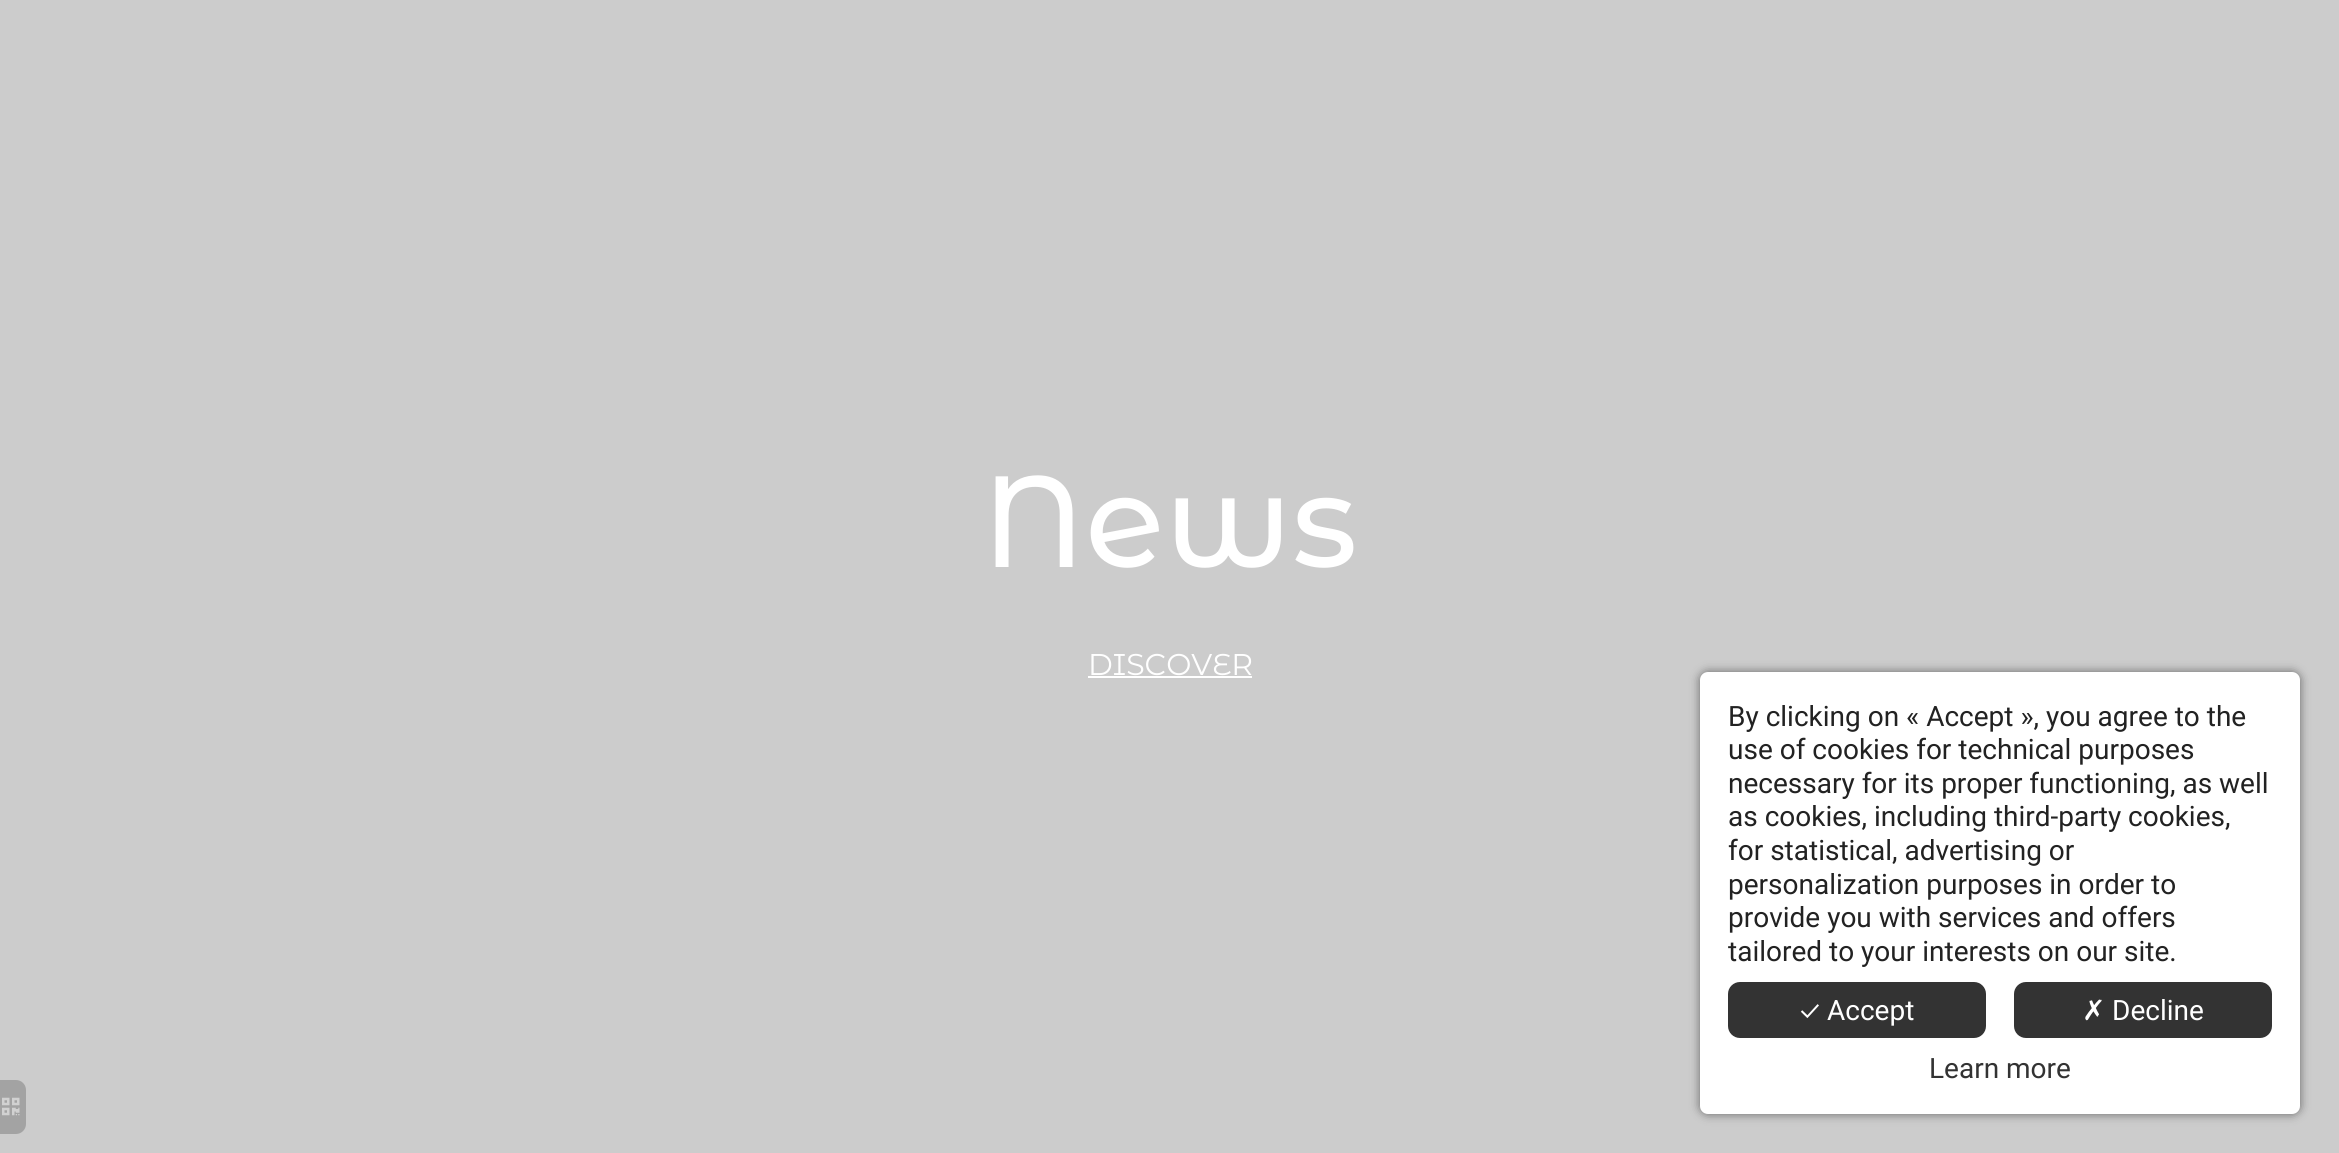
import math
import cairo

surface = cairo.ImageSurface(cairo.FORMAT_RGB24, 2339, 1153)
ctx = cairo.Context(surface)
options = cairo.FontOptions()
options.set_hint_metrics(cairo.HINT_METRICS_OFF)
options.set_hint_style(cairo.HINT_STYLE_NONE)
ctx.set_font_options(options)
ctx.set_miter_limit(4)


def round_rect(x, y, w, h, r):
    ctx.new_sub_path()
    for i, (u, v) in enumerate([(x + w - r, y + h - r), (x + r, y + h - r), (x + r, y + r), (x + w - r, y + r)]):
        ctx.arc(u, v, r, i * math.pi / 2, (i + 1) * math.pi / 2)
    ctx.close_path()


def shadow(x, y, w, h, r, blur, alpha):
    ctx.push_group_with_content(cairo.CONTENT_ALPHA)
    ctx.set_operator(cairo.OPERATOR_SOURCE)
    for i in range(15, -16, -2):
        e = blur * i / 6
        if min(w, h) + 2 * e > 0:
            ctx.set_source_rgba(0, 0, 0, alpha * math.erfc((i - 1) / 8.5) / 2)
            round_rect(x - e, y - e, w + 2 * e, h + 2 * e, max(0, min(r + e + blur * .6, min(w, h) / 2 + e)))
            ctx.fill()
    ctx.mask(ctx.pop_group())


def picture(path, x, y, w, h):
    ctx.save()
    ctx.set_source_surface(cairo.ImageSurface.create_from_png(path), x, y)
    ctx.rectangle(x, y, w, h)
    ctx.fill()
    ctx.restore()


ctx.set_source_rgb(0.8, 0.8, 0.8)
ctx.paint()
ctx.select_font_face("Montserrat Alternates Medium")
ctx.set_font_size(129.5)
ctx.set_source_rgb(1, 1, 1)
ctx.move_to(982, 567)
ctx.show_text("News")
ctx.select_font_face("Montserrat Alternates")
ctx.set_font_size(30)
ctx.move_to(1088, 675)
ctx.show_text("DISCOVER")
ctx.rectangle(1088, 676, 164, 2)
ctx.fill()
ctx.set_source_rgb(0, 0, 0)
shadow(1700, 672, 600, 442, 8, 5, 0.5)
ctx.set_source_rgb(1, 1, 1)
round_rect(1700, 672, 600, 442, 8)
ctx.fill()
ctx.select_font_face("Roboto")
ctx.set_font_size(28)
ctx.set_source_rgb(0.133, 0.133, 0.133)
ctx.move_to(1728, 726)
ctx.show_text("By clicking on « Accept », you agree to the")
ctx.move_to(1728, 759)
ctx.show_text("use of cookies for technical purposes")
ctx.move_to(1728, 793)
ctx.show_text("necessary for its proper functioning, as well")
ctx.move_to(1728, 826)
ctx.show_text("as cookies, including third-party cookies,")
ctx.move_to(1728, 860)
ctx.show_text("for statistical, advertising or")
ctx.move_to(1728, 894)
ctx.show_text("personalization purposes in order to")
ctx.move_to(1728, 927)
ctx.show_text("provide you with services and offers")
ctx.move_to(1728, 961)
ctx.show_text("tailored to your interests on our site.")
ctx.set_source_rgb(0.2, 0.2, 0.2)
round_rect(1728, 982, 258, 56, 12)
ctx.fill()
ctx.select_font_face("Ubuntu")
ctx.set_source_rgb(1, 1, 1)
ctx.move_to(1800, 1020)
ctx.show_text("✓")
ctx.select_font_face("Roboto")
ctx.move_to(1827, 1020)
ctx.show_text("Accept")
ctx.set_source_rgb(0.2, 0.2, 0.2)
round_rect(2014, 982, 258, 56, 12)
ctx.fill()
ctx.select_font_face("DejaVu Sans")
ctx.set_source_rgb(1, 1, 1)
ctx.move_to(2082, 1020)
ctx.show_text("✗")
ctx.select_font_face("Roboto")
ctx.move_to(2112, 1020)
ctx.show_text("Decline")
ctx.set_source_rgb(0.2, 0.2, 0.2)
ctx.move_to(1929, 1078)
ctx.show_text("Learn more")
ctx.set_source_rgb(0.639, 0.639, 0.639)
ctx.new_path()
ctx.move_to(0, 1080)
ctx.line_to(16, 1080)
ctx.curve_to(21.5, 1080, 26, 1084.5, 26, 1090)
ctx.line_to(26, 1124)
ctx.curve_to(26, 1129.5, 21.5, 1134, 16, 1134)
ctx.line_to(0, 1134)
ctx.close_path()
ctx.fill()
picture("img1.png", 2, 1097, 18, 19)
surface.write_to_png("page.png")
